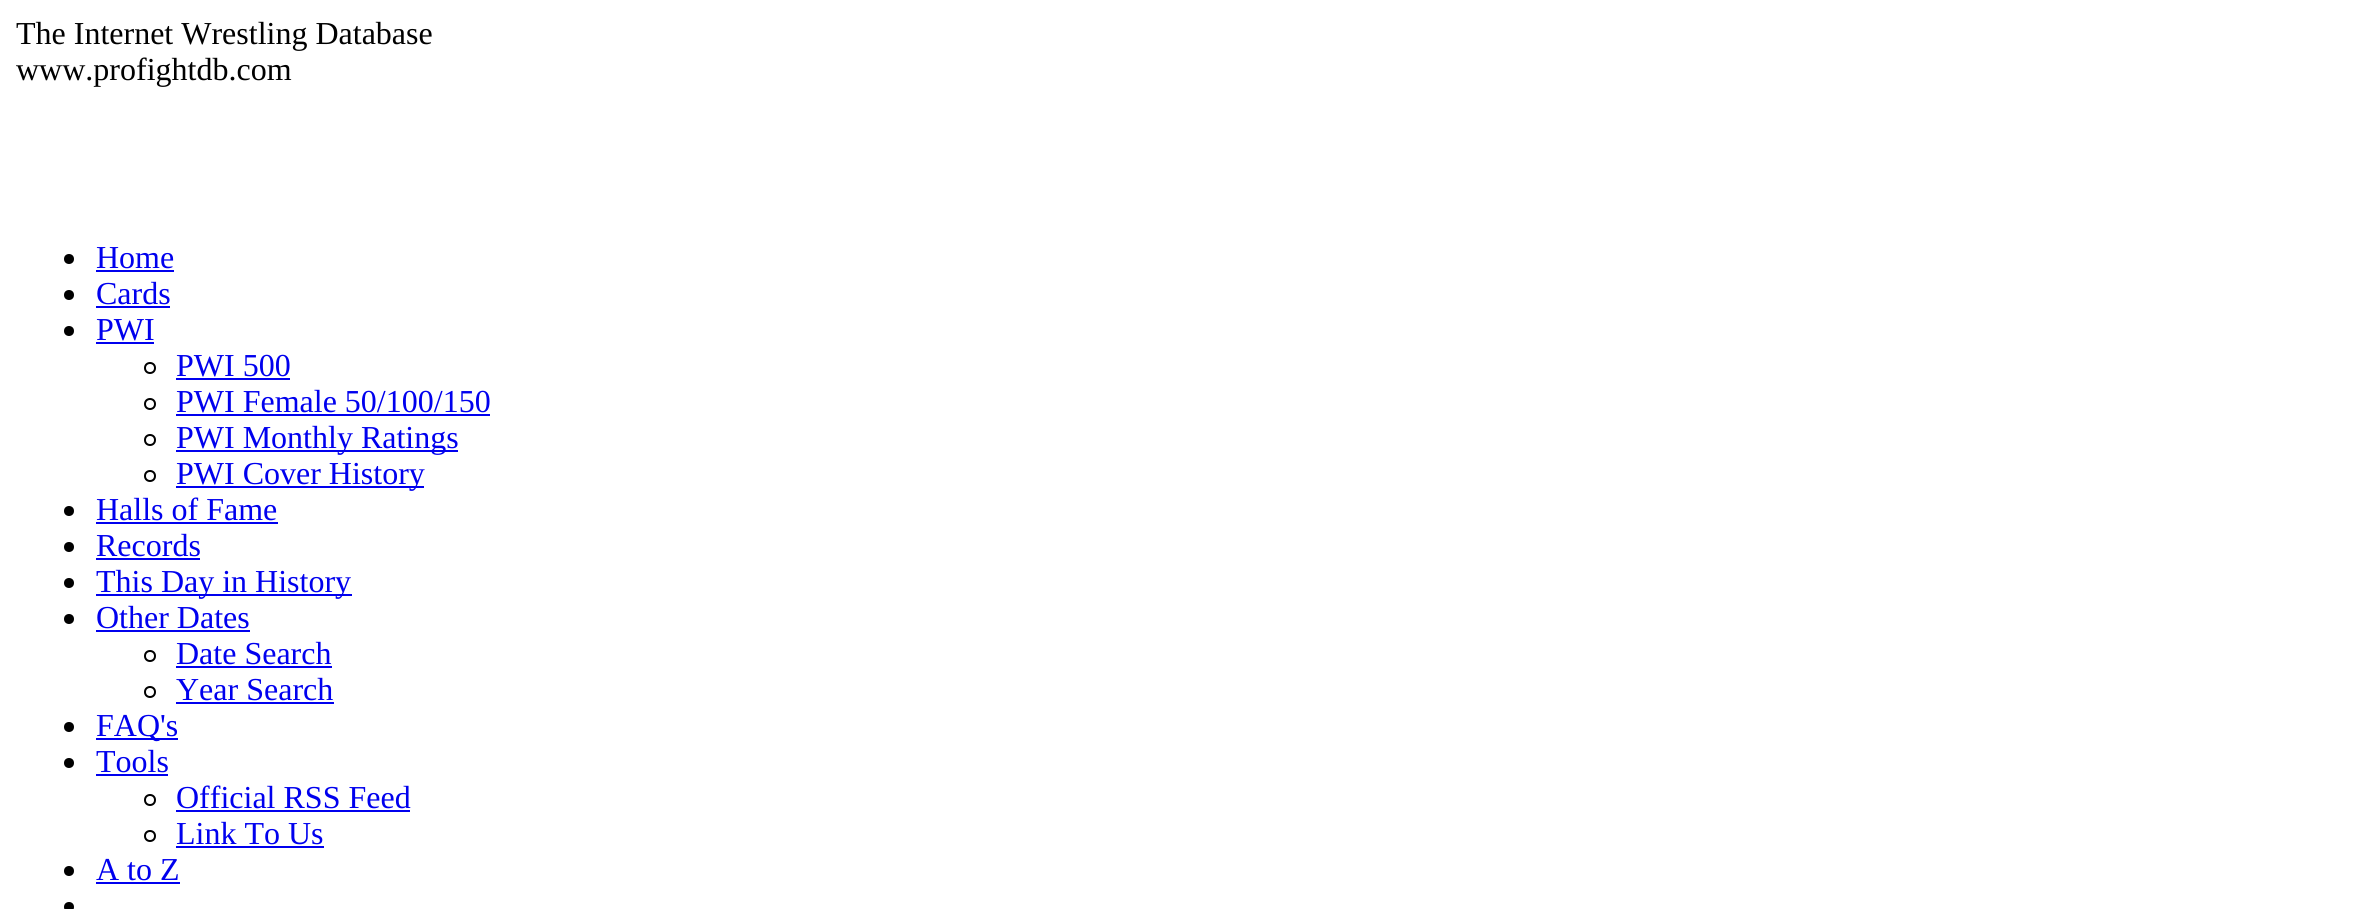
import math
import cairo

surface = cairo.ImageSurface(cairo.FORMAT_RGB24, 2362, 909)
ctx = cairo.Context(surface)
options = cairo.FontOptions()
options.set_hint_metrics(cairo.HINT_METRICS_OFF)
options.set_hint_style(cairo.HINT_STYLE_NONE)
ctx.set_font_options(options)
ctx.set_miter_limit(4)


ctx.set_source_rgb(1, 1, 1)
ctx.paint()
ctx.select_font_face("Liberation Serif")
ctx.set_font_size(32)
ctx.set_source_rgb(0, 0, 0)
ctx.move_to(16, 44)
ctx.show_text("The Internet Wrestling Database")
ctx.move_to(16, 80)
ctx.show_text("www.profightdb.com")
ctx.new_path()
ctx.arc(69, 259, 5, 0, 2 * math.pi)
ctx.fill()
ctx.set_source_rgb(0, 0, 0.933)
ctx.move_to(96, 268)
ctx.show_text("Home")
ctx.rectangle(96, 270, 78, 2)
ctx.fill()
ctx.set_source_rgb(0, 0, 0)
ctx.arc(69, 295, 5, 0, 2 * math.pi)
ctx.fill()
ctx.set_source_rgb(0, 0, 0.933)
ctx.move_to(96, 304)
ctx.show_text("Cards")
ctx.rectangle(96, 306, 74, 2)
ctx.fill()
ctx.set_source_rgb(0, 0, 0)
ctx.arc(69, 331, 5, 0, 2 * math.pi)
ctx.fill()
ctx.set_source_rgb(0, 0, 0.933)
ctx.move_to(96, 340)
ctx.show_text("PWI")
ctx.rectangle(96, 342, 58, 2)
ctx.fill()
ctx.arc(150, 368, 5, 0, 2 * math.pi)
ctx.set_source_rgb(0, 0, 0)
ctx.stroke()
ctx.set_source_rgb(0, 0, 0.933)
ctx.move_to(176, 376)
ctx.show_text("PWI 500")
ctx.rectangle(176, 378, 114, 2)
ctx.fill()
ctx.arc(150, 404, 5, 0, 2 * math.pi)
ctx.set_source_rgb(0, 0, 0)
ctx.stroke()
ctx.set_source_rgb(0, 0, 0.933)
ctx.move_to(176, 412)
ctx.show_text("PWI Female 50/100/150")
ctx.rectangle(176, 414, 314, 2)
ctx.fill()
ctx.arc(150, 440, 5, 0, 2 * math.pi)
ctx.set_source_rgb(0, 0, 0)
ctx.stroke()
ctx.set_source_rgb(0, 0, 0.933)
ctx.rectangle(176, 450, 282, 2)
ctx.fill()
ctx.move_to(176, 448)
ctx.show_text("PWI Monthly Ratings")
ctx.new_path()
ctx.arc(150, 476, 5, 0, 2 * math.pi)
ctx.set_source_rgb(0, 0, 0)
ctx.stroke()
ctx.set_source_rgb(0, 0, 0.933)
ctx.rectangle(176, 486, 248, 2)
ctx.fill()
ctx.move_to(176, 484)
ctx.show_text("PWI Cover History")
ctx.set_source_rgb(0, 0, 0)
ctx.new_path()
ctx.arc(69, 511, 5, 0, 2 * math.pi)
ctx.fill()
ctx.set_source_rgb(0, 0, 0.933)
ctx.move_to(96, 520)
ctx.show_text("Halls of Fame")
ctx.rectangle(96, 522, 182, 2)
ctx.fill()
ctx.set_source_rgb(0, 0, 0)
ctx.arc(69, 547, 5, 0, 2 * math.pi)
ctx.fill()
ctx.set_source_rgb(0, 0, 0.933)
ctx.move_to(96, 556)
ctx.show_text("Records")
ctx.rectangle(96, 558, 104, 2)
ctx.fill()
ctx.set_source_rgb(0, 0, 0)
ctx.arc(69, 583, 5, 0, 2 * math.pi)
ctx.fill()
ctx.set_source_rgb(0, 0, 0.933)
ctx.rectangle(96, 594, 256, 2)
ctx.fill()
ctx.move_to(96, 592)
ctx.show_text("This Day in History")
ctx.set_source_rgb(0, 0, 0)
ctx.new_path()
ctx.arc(69, 619, 5, 0, 2 * math.pi)
ctx.fill()
ctx.set_source_rgb(0, 0, 0.933)
ctx.move_to(96, 628)
ctx.show_text("Other Dates")
ctx.rectangle(96, 630, 154, 2)
ctx.fill()
ctx.arc(150, 656, 5, 0, 2 * math.pi)
ctx.set_source_rgb(0, 0, 0)
ctx.stroke()
ctx.set_source_rgb(0, 0, 0.933)
ctx.move_to(176, 664)
ctx.show_text("Date Search")
ctx.rectangle(176, 666, 156, 2)
ctx.fill()
ctx.arc(150, 692, 5, 0, 2 * math.pi)
ctx.set_source_rgb(0, 0, 0)
ctx.stroke()
ctx.set_source_rgb(0, 0, 0.933)
ctx.move_to(176, 700)
ctx.show_text("Year Search")
ctx.rectangle(176, 702, 158, 2)
ctx.fill()
ctx.set_source_rgb(0, 0, 0)
ctx.arc(69, 727, 5, 0, 2 * math.pi)
ctx.fill()
ctx.set_source_rgb(0, 0, 0.933)
ctx.rectangle(96, 738, 82, 2)
ctx.fill()
ctx.move_to(96, 736)
ctx.show_text("FAQ's")
ctx.set_source_rgb(0, 0, 0)
ctx.new_path()
ctx.arc(69, 763, 5, 0, 2 * math.pi)
ctx.fill()
ctx.set_source_rgb(0, 0, 0.933)
ctx.move_to(96, 772)
ctx.show_text("Tools")
ctx.rectangle(96, 774, 72, 2)
ctx.fill()
ctx.arc(150, 800, 5, 0, 2 * math.pi)
ctx.set_source_rgb(0, 0, 0)
ctx.stroke()
ctx.set_source_rgb(0, 0, 0.933)
ctx.move_to(176, 808)
ctx.show_text("Official RSS Feed")
ctx.rectangle(176, 810, 234, 2)
ctx.fill()
ctx.arc(150, 836, 5, 0, 2 * math.pi)
ctx.set_source_rgb(0, 0, 0)
ctx.stroke()
ctx.set_source_rgb(0, 0, 0.933)
ctx.move_to(176, 844)
ctx.show_text("Link To Us")
ctx.rectangle(176, 846, 148, 2)
ctx.fill()
ctx.set_source_rgb(0, 0, 0)
ctx.arc(69, 871, 5, 0, 2 * math.pi)
ctx.fill()
ctx.set_source_rgb(0, 0, 0.933)
ctx.move_to(96, 880)
ctx.show_text("A to Z")
ctx.rectangle(96, 882, 84, 2)
ctx.fill()
ctx.set_source_rgb(0, 0, 0)
ctx.arc(69, 907, 5, 0, 2 * math.pi)
ctx.fill()
surface.write_to_png("page.png")
